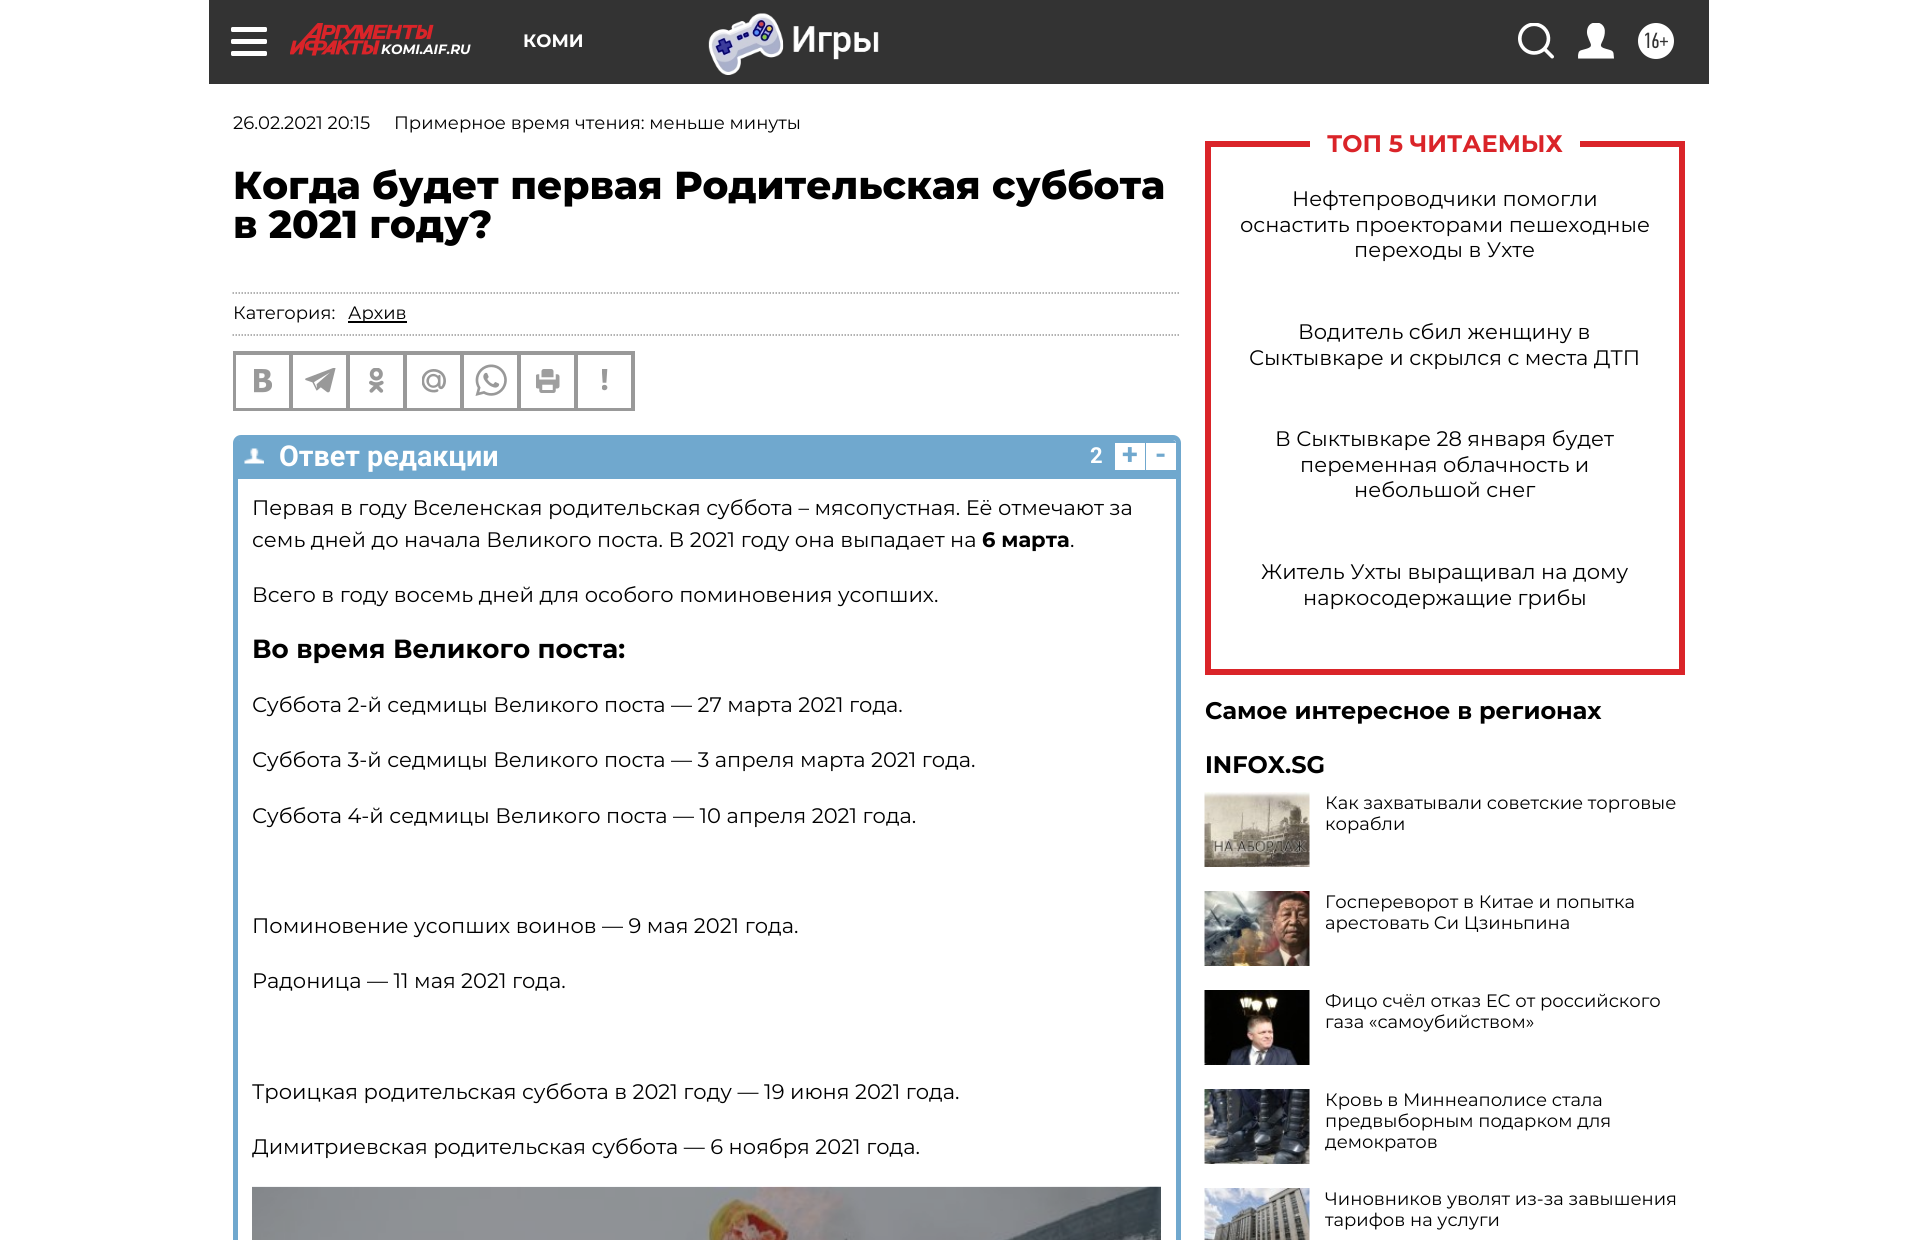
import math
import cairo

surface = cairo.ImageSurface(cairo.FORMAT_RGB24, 1917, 1240)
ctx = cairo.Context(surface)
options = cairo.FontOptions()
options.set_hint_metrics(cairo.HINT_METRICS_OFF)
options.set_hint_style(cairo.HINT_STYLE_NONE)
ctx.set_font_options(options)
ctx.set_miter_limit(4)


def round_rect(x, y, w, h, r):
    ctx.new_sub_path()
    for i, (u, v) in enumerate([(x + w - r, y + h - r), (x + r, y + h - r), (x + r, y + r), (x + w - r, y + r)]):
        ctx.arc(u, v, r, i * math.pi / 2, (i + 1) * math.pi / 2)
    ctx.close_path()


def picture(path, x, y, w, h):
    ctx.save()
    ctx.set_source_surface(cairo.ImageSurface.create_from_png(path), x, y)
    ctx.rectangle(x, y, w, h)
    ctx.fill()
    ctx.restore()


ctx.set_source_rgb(1, 1, 1)
ctx.paint()
ctx.set_source_rgb(0.2, 0.2, 0.2)
ctx.rectangle(209, 0, 1500, 84)
ctx.fill()
ctx.set_source_rgb(1, 1, 1)
round_rect(231, 27, 36, 5, 1.5)
ctx.fill()
round_rect(231, 39, 36, 5, 1.5)
ctx.fill()
round_rect(231, 51, 36, 5, 1.5)
ctx.fill()
ctx.select_font_face("Montserrat", cairo.FONT_SLANT_NORMAL, cairo.FONT_WEIGHT_BOLD)
ctx.set_font_size(18)
ctx.move_to(523, 47)
ctx.show_text("КОМИ")
picture("img1.png", 708, 13, 171, 62)
picture("img2.png", 1518, 23, 36, 36)
picture("img3.png", 1578, 23, 36, 36)
ctx.arc(1656, 41, 18, 0, 2 * math.pi)
ctx.fill()
ctx.select_font_face("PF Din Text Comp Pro")
ctx.set_font_size(22)
ctx.set_source_rgb(0.2, 0.2, 0.2)
ctx.move_to(1643, 48)
ctx.show_text("16+")
picture("img4.png", 290, 23, 144, 33)
ctx.select_font_face("Montserrat", cairo.FONT_SLANT_ITALIC, cairo.FONT_WEIGHT_BOLD)
ctx.set_font_size(13.5)
ctx.set_source_rgb(1, 1, 1)
ctx.move_to(381, 54)
ctx.show_text("KOMI.AIF.RU")
ctx.select_font_face("Montserrat")
ctx.set_font_size(18)
ctx.set_source_rgb(0, 0, 0)
ctx.move_to(233, 129)
ctx.show_text("26.02.2021 20:15")
ctx.move_to(394, 129)
ctx.show_text("Примерное время чтения: меньше минуты")
ctx.select_font_face("Montserrat ExtraBold")
ctx.set_font_size(39)
ctx.move_to(233, 199)
ctx.show_text("Когда будет первая Родительская суббота")
ctx.move_to(233, 238)
ctx.show_text("в 2021 году?")
ctx.new_path()
ctx.move_to(232.5, 293)
ctx.line_to(1180.5, 293)
ctx.set_source_rgb(0.6, 0.6, 0.6)
ctx.set_line_width(1.5)
ctx.set_dash([1.5, 1.5])
ctx.stroke()
ctx.new_path()
ctx.move_to(232.5, 335)
ctx.line_to(1180.5, 335)
ctx.stroke()
ctx.select_font_face("Montserrat")
ctx.set_font_size(18)
ctx.set_source_rgb(0, 0, 0)
ctx.move_to(233, 319)
ctx.show_text("Категория:")
ctx.rectangle(348, 321, 59, 2)
ctx.fill()
ctx.move_to(348, 319)
ctx.show_text("Архив")
ctx.rectangle(234, 352, 400, 58)
ctx.set_source_rgb(0.6, 0.6, 0.6)
ctx.set_line_width(2)
ctx.set_dash([])
ctx.stroke()
ctx.rectangle(235, 354, 55, 55)
ctx.stroke()
picture("img5.png", 254, 369, 18, 24)
ctx.rectangle(292, 354, 55, 55)
ctx.stroke()
picture("img6.png", 305, 368, 31, 25)
ctx.rectangle(349, 354, 55, 55)
ctx.stroke()
picture("img7.png", 369, 368, 15, 25)
ctx.rectangle(406, 354, 55, 55)
ctx.stroke()
picture("img8.png", 422, 369, 24, 24)
ctx.rectangle(463, 354, 55, 55)
ctx.stroke()
picture("img9.png", 475, 364, 32, 32)
ctx.rectangle(520, 354, 55, 55)
ctx.stroke()
picture("img10.png", 536, 369, 24, 24)
ctx.rectangle(577, 354, 55, 55)
ctx.stroke()
picture("img11.png", 602, 369, 6, 22)
round_rect(235.5, 437.5, 943, 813, 5.5)
ctx.set_source_rgb(0.439, 0.659, 0.808)
ctx.set_line_width(5)
ctx.stroke()
ctx.new_path()
ctx.move_to(240, 440)
ctx.line_to(1173, 440)
ctx.curve_to(1174.5, 440, 1176, 441.5, 1176, 443)
ctx.line_to(1176, 479)
ctx.line_to(237, 479)
ctx.line_to(237, 443)
ctx.curve_to(237, 441.5, 238.5, 440, 240, 440)
ctx.close_path()
ctx.fill()
picture("img12.png", 244, 448, 20, 16)
ctx.select_font_face("Roboto", cairo.FONT_SLANT_NORMAL, cairo.FONT_WEIGHT_BOLD)
ctx.set_font_size(28.75)
ctx.set_source_rgb(1, 1, 1)
ctx.move_to(279, 466)
ctx.show_text("Ответ редакции")
ctx.set_font_size(22)
ctx.move_to(1090, 463)
ctx.show_text("2")
ctx.rectangle(1115, 443, 30, 27)
ctx.fill()
ctx.set_font_size(28.75)
ctx.set_source_rgb(0.439, 0.659, 0.808)
ctx.move_to(1122, 464)
ctx.show_text("+")
ctx.set_source_rgb(1, 1, 1)
ctx.rectangle(1146, 443, 30, 27)
ctx.fill()
ctx.set_source_rgb(0.439, 0.659, 0.808)
ctx.move_to(1155, 464)
ctx.show_text("-")
ctx.select_font_face("Montserrat")
ctx.set_font_size(21)
ctx.set_source_rgb(0, 0, 0)
ctx.move_to(252, 515)
ctx.show_text("Первая в году Вселенская родительская суббота – мясопустная. Её отмечают за")
ctx.move_to(252, 547)
ctx.show_text("семь дней до начала Великого поста. В 2021 году она выпадает на")
ctx.select_font_face("Montserrat", cairo.FONT_SLANT_NORMAL, cairo.FONT_WEIGHT_BOLD)
ctx.move_to(982, 547)
ctx.show_text("6 марта")
ctx.select_font_face("Montserrat")
ctx.move_to(1070, 547)
ctx.show_text(".")
ctx.move_to(252, 602)
ctx.show_text("Всего в году восемь дней для особого поминовения усопших.")
ctx.select_font_face("Montserrat", cairo.FONT_SLANT_NORMAL, cairo.FONT_WEIGHT_BOLD)
ctx.set_font_size(26.25)
ctx.move_to(252, 658)
ctx.show_text("Во время Великого поста:")
ctx.select_font_face("Montserrat")
ctx.set_font_size(21)
ctx.move_to(252, 712)
ctx.show_text("Суббота 2-й седмицы Великого поста — 27 марта 2021 года.")
ctx.move_to(252, 767)
ctx.show_text("Суббота 3-й седмицы Великого поста — 3 апреля марта 2021 года.")
ctx.move_to(252, 823)
ctx.show_text("Суббота 4-й седмицы Великого поста — 10 апреля 2021 года.")
ctx.move_to(252, 933)
ctx.show_text("Поминовение усопших воинов — 9 мая 2021 года.")
ctx.move_to(252, 988)
ctx.show_text("Радоница — 11 мая 2021 года.")
ctx.move_to(252, 1099)
ctx.show_text("Троицкая родительская суббота в 2021 году — 19 июня 2021 года.")
ctx.move_to(252, 1154)
ctx.show_text("Димитриевская родительская суббота — 6 ноября 2021 года.")
picture("img13.png", 252, 1186, 909, 54)
ctx.set_source_rgb(0.855, 0.141, 0.161)
ctx.rectangle(1679, 141, 6, 534)
ctx.fill()
ctx.rectangle(1205, 669, 480, 6)
ctx.fill()
ctx.rectangle(1205, 141, 6, 534)
ctx.fill()
ctx.rectangle(1205, 141, 105, 6)
ctx.fill()
ctx.select_font_face("Montserrat", cairo.FONT_SLANT_NORMAL, cairo.FONT_WEIGHT_BOLD)
ctx.set_font_size(24)
ctx.move_to(1327, 152)
ctx.show_text("ТОП 5 ЧИТАЕМЫХ")
ctx.rectangle(1580, 141, 105, 6)
ctx.fill()
ctx.select_font_face("Montserrat")
ctx.set_font_size(21)
ctx.set_source_rgb(0, 0, 0)
ctx.move_to(1292, 206)
ctx.show_text("Нефтепроводчики помогли")
ctx.move_to(1240, 232)
ctx.show_text("оснастить проекторами пешеходные")
ctx.move_to(1354, 257)
ctx.show_text("переходы в Ухте")
ctx.move_to(1298, 339)
ctx.show_text("Водитель сбил женщину в")
ctx.move_to(1249, 365)
ctx.show_text("Сыктывкаре и скрылся с места ДТП")
ctx.move_to(1275, 446)
ctx.show_text("В Сыктывкаре 28 января будет")
ctx.move_to(1300, 472)
ctx.show_text("переменная облачность и")
ctx.move_to(1354, 497)
ctx.show_text("небольшой снег")
ctx.move_to(1261, 579)
ctx.show_text("Житель Ухты выращивал на дому")
ctx.move_to(1303, 605)
ctx.show_text("наркосодержащие грибы")
ctx.select_font_face("Montserrat", cairo.FONT_SLANT_NORMAL, cairo.FONT_WEIGHT_BOLD)
ctx.set_font_size(24)
ctx.move_to(1205, 719)
ctx.show_text("Самое интересное в регионах")
ctx.move_to(1205, 773)
ctx.show_text("INFOX.SG")
picture("img14.png", 1204, 792, 106, 75)
ctx.select_font_face("Montserrat")
ctx.set_font_size(18)
ctx.move_to(1325, 809)
ctx.show_text("Как захватывали советские торговые")
ctx.move_to(1325, 830)
ctx.show_text("корабли")
picture("img15.png", 1204, 891, 106, 75)
ctx.move_to(1325, 908)
ctx.show_text("Госпереворот в Китае и попытка")
ctx.move_to(1325, 929)
ctx.show_text("арестовать Си Цзиньпина")
picture("img16.png", 1204, 990, 106, 75)
ctx.move_to(1325, 1007)
ctx.show_text("Фицо счёл отказ ЕС от российского")
ctx.move_to(1325, 1028)
ctx.show_text("газа «самоубийством»")
picture("img17.png", 1204, 1089, 106, 75)
ctx.move_to(1325, 1106)
ctx.show_text("Кровь в Миннеаполисе стала")
ctx.move_to(1325, 1127)
ctx.show_text("предвыборным подарком для")
ctx.move_to(1325, 1148)
ctx.show_text("демократов")
picture("img18.png", 1204, 1188, 106, 52)
ctx.move_to(1325, 1205)
ctx.show_text("Чиновников уволят из-за завышения")
ctx.move_to(1325, 1226)
ctx.show_text("тарифов на услуги")
surface.write_to_png("page.png")
